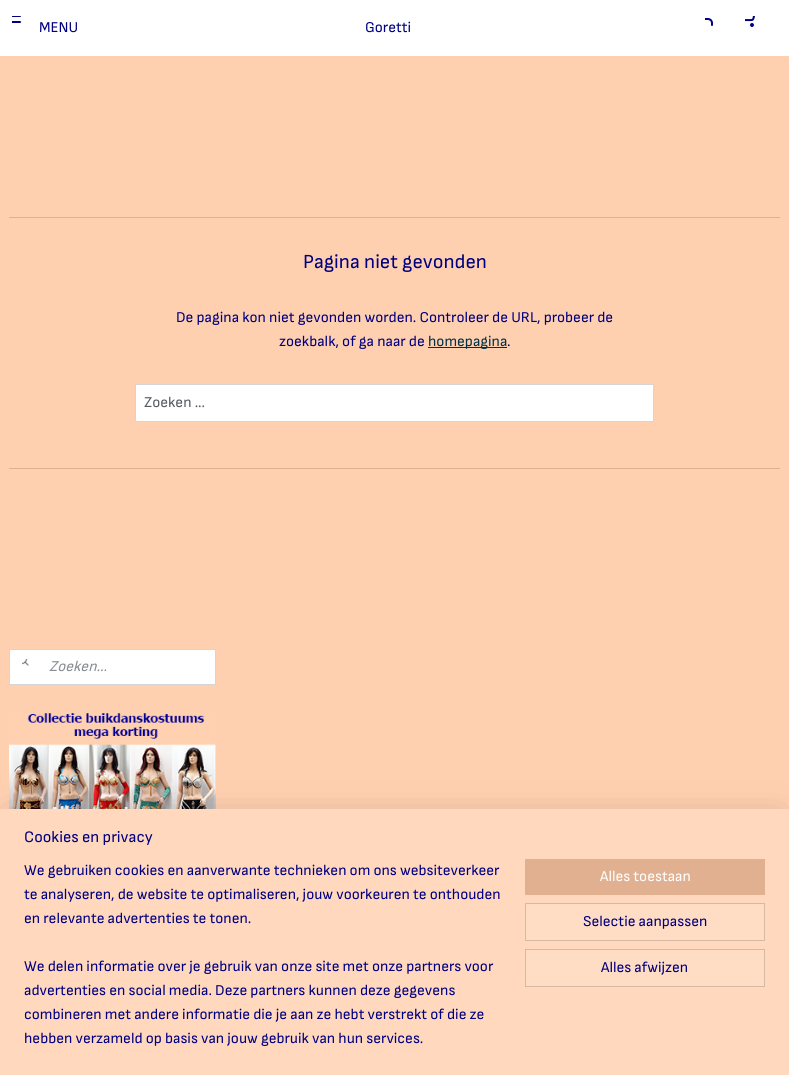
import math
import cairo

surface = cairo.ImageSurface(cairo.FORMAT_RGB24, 789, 1075)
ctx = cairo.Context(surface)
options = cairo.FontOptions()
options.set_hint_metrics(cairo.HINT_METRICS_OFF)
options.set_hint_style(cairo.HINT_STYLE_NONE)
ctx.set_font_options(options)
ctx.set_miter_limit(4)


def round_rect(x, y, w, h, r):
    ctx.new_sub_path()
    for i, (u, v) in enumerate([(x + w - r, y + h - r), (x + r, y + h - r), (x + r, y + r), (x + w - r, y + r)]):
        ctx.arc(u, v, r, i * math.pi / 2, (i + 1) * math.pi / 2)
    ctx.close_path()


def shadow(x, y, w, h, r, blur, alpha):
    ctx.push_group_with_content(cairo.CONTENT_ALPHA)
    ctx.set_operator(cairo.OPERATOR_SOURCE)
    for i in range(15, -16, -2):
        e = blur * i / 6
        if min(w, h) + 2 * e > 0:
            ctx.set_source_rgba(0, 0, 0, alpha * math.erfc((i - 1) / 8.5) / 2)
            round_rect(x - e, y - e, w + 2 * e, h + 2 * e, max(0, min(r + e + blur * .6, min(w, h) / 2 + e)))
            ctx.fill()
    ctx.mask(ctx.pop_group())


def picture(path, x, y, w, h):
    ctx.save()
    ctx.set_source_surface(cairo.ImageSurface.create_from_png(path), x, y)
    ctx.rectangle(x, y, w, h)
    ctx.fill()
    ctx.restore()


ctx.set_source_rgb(1, 0.816, 0.69)
ctx.paint()
ctx.set_source_rgb(1, 1, 1)
ctx.rectangle(0, 0, 789, 56)
ctx.fill()
picture("img1.png", 12, 16, 9, 7)
ctx.select_font_face("Sofia Sans")
ctx.set_font_size(15)
ctx.set_source_rgb(0, 0, 0.502)
ctx.move_to(39, 32)
ctx.show_text("MENU")
ctx.move_to(365, 32)
ctx.show_text("Goretti")
picture("img2.png", 705, 18, 8, 8)
picture("img3.png", 745, 16, 10, 11)
ctx.set_source_rgb(0.878, 0.69, 0.565)
ctx.rectangle(9, 217, 771, 1)
ctx.fill()
ctx.rectangle(9, 468, 771, 1)
ctx.fill()
ctx.set_font_size(20)
ctx.set_source_rgb(0, 0, 0.502)
ctx.move_to(303, 268)
ctx.show_text("Pagina niet gevonden")
ctx.set_font_size(15)
ctx.move_to(176, 322)
ctx.show_text("De pagina kon niet gevonden worden. Controleer de URL, probeer de")
ctx.move_to(279, 346)
ctx.show_text("zoekbalk, of ga naar de")
ctx.set_source_rgb(0.008, 0.188, 0.278)
ctx.rectangle(428, 347, 79, 1)
ctx.fill()
ctx.move_to(428, 346)
ctx.show_text("homepagina")
ctx.set_source_rgb(0, 0, 0.502)
ctx.move_to(507, 346)
ctx.show_text(".")
ctx.set_source_rgb(1, 1, 1)
ctx.rectangle(135.5, 384.5, 518, 37)
ctx.fill_preserve()
ctx.set_source_rgb(0.827, 0.835, 0.851)
ctx.set_line_width(1)
ctx.stroke()
ctx.set_source_rgb(0.341, 0.357, 0.384)
ctx.move_to(144, 407)
ctx.show_text("Zoeken ...")
ctx.set_source_rgb(1, 1, 1)
ctx.rectangle(9.5, 649.5, 206, 35)
ctx.fill_preserve()
ctx.set_source_rgb(0.827, 0.835, 0.851)
ctx.stroke()
picture("img4.png", 22, 659, 7, 7)
ctx.select_font_face("Sofia Sans", cairo.FONT_SLANT_ITALIC)
ctx.set_source_rgb(0.537, 0.549, 0.569)
ctx.move_to(49, 671)
ctx.show_text("Zoeken...")
picture("img5.png", 9, 713, 207, 96)
ctx.set_source_rgb(0, 0, 0)
shadow(10, 819, 769, 246, 0, 18, 0.2)
ctx.set_source_rgb(1, 0.847, 0.741)
ctx.rectangle(0, 809, 789, 266)
ctx.fill()
ctx.select_font_face("Sofia Sans")
ctx.set_font_size(16)
ctx.set_source_rgb(0, 0, 0.502)
ctx.move_to(24, 842)
ctx.show_text("Cookies en privacy")
ctx.set_font_size(15)
ctx.move_to(24, 875)
ctx.show_text("We gebruiken cookies en aanverwante technieken om ons websiteverkeer")
ctx.move_to(24, 899)
ctx.show_text("te analyseren, de website te optimaliseren, jouw voorkeuren te onthouden")
ctx.move_to(24, 923)
ctx.show_text("en relevante advertenties te tonen.")
ctx.move_to(24, 971)
ctx.show_text("We delen informatie over je gebruik van onze site met onze partners voor")
ctx.move_to(24, 995)
ctx.show_text("advertenties en social media. Deze partners kunnen deze gegevens")
ctx.move_to(24, 1019)
ctx.show_text("combineren met andere informatie die je aan ze hebt verstrekt of die ze")
ctx.move_to(24, 1043)
ctx.show_text("hebben verzameld op basis van jouw gebruik van hun services.")
ctx.set_source_rgb(0.878, 0.69, 0.565)
ctx.rectangle(525, 859, 240, 36)
ctx.fill()
ctx.set_source_rgb(1, 1, 1)
ctx.move_to(600, 881)
ctx.show_text("Alles toestaan")
ctx.set_source_rgb(1, 0.863, 0.769)
ctx.rectangle(525.5, 903.5, 239, 37)
ctx.fill_preserve()
ctx.set_source_rgb(0.839, 0.725, 0.647)
ctx.stroke()
ctx.set_source_rgb(0, 0, 0.502)
ctx.move_to(583, 926)
ctx.show_text("Selectie aanpassen")
ctx.set_source_rgb(1, 0.863, 0.769)
ctx.rectangle(525.5, 949.5, 239, 37)
ctx.fill_preserve()
ctx.set_source_rgb(0.839, 0.725, 0.647)
ctx.stroke()
ctx.set_source_rgb(0, 0, 0.502)
ctx.move_to(601, 972)
ctx.show_text("Alles afwijzen")
surface.write_to_png("page.png")
